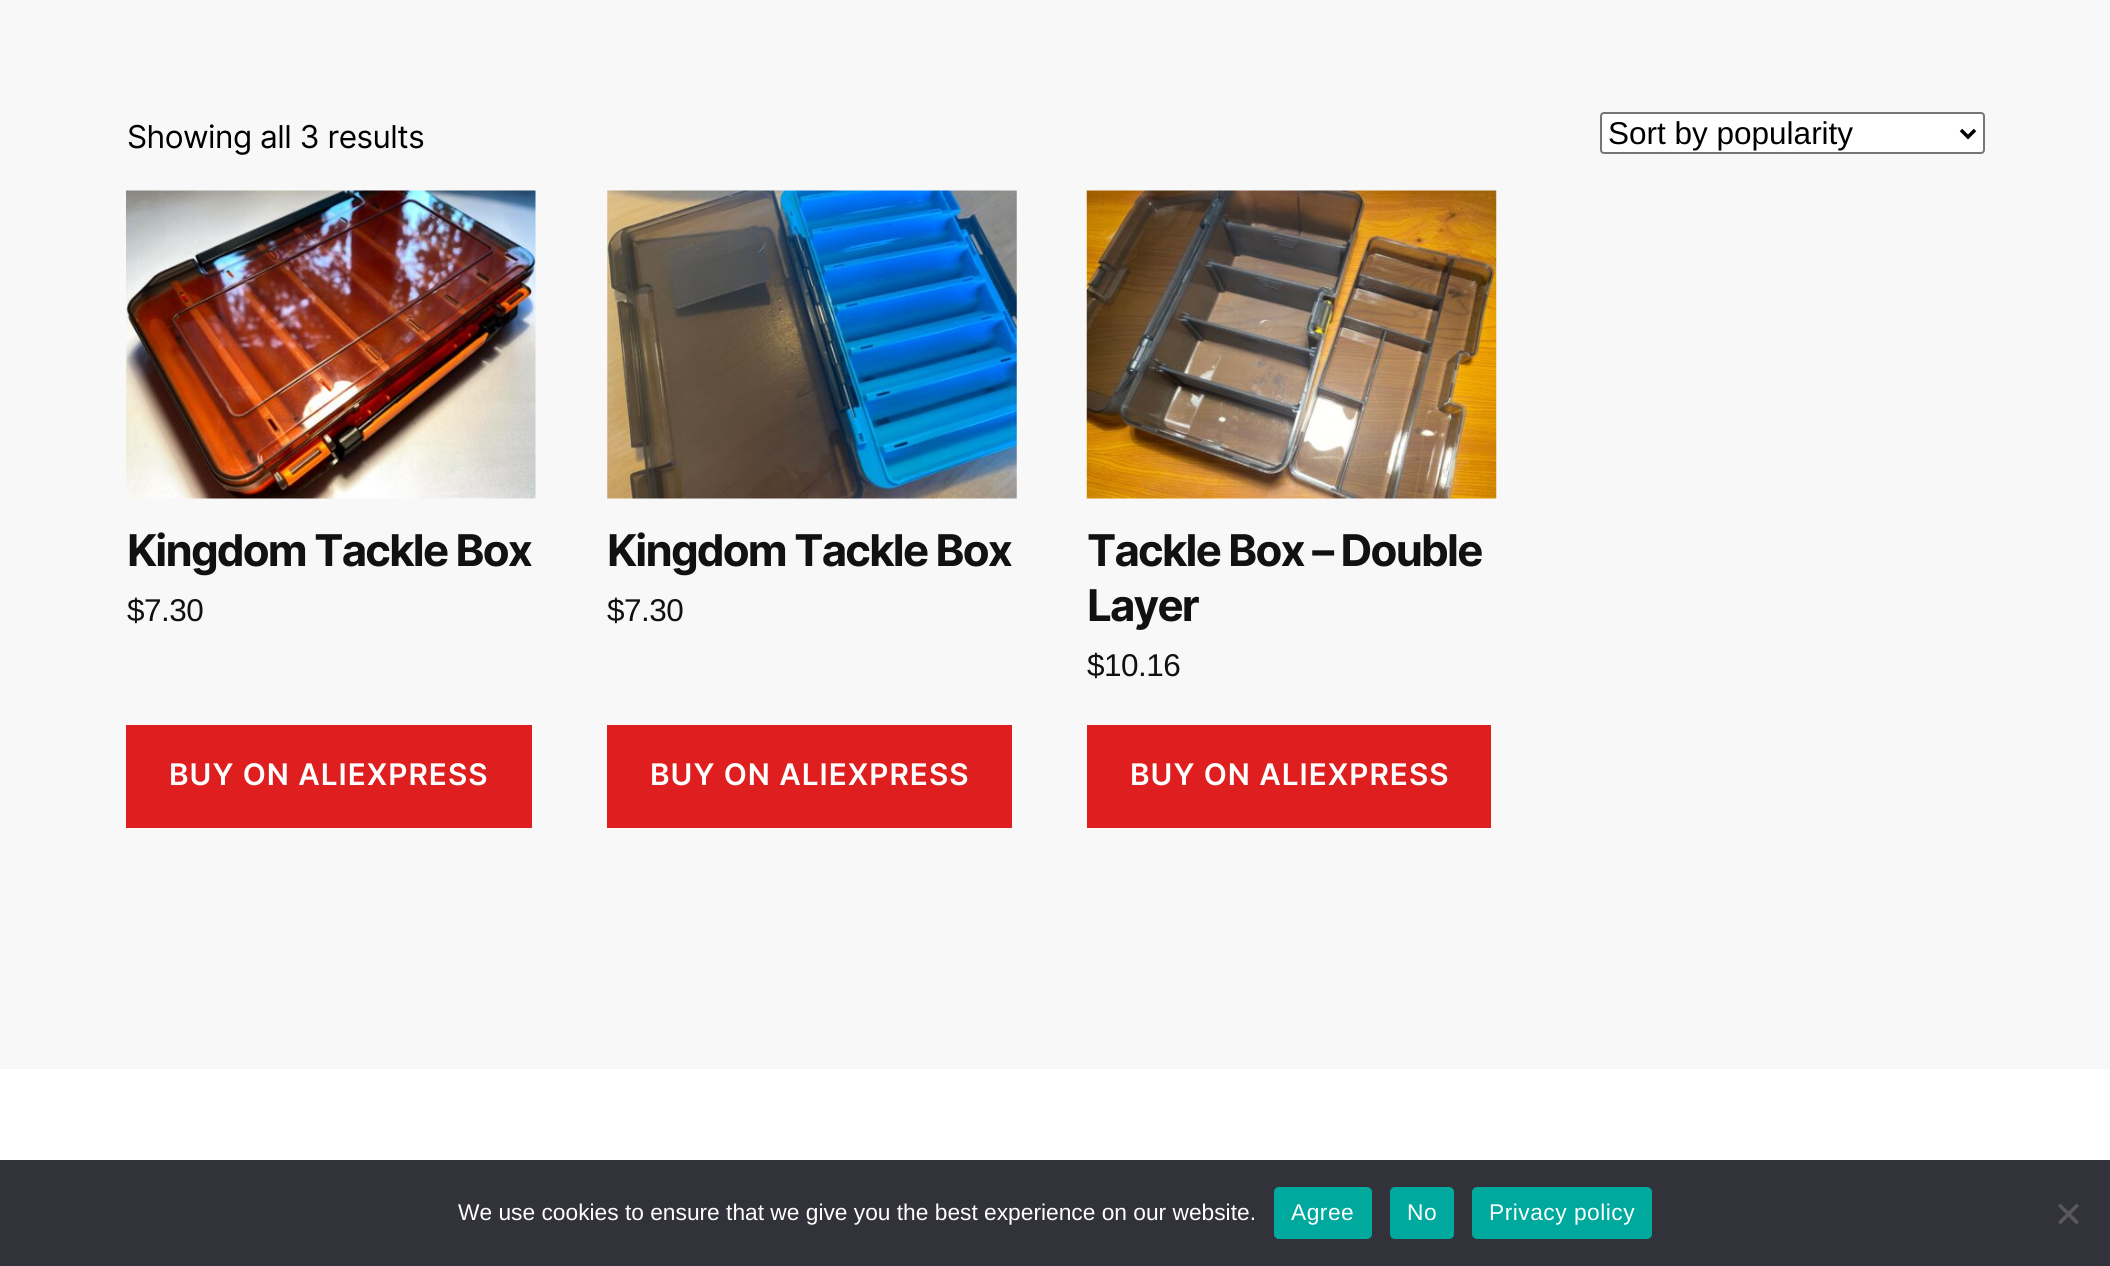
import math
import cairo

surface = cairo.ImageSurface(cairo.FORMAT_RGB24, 2110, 1266)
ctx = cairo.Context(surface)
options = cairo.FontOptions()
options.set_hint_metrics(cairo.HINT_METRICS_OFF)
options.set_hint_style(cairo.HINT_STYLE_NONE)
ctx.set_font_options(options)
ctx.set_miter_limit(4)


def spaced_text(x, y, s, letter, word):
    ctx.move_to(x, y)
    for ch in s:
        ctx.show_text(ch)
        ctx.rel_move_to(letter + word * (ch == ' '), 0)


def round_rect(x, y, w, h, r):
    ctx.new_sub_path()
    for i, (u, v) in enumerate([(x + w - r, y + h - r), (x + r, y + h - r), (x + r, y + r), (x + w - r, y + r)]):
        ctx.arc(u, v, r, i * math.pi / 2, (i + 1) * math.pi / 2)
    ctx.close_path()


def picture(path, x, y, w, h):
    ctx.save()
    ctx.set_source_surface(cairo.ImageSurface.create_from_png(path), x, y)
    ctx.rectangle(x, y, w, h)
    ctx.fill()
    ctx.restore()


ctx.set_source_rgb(0.969, 0.969, 0.969)
ctx.paint()
ctx.select_font_face("Inter")
ctx.set_font_size(31.5)
ctx.set_source_rgb(0, 0, 0)
spaced_text(127, 148, "Showing all 3 results", -0.5, 0)
ctx.set_source_rgb(1, 1, 1)
round_rect(1601, 113, 383, 40, 3)
ctx.fill_preserve()
ctx.set_source_rgb(0.463, 0.463, 0.463)
ctx.stroke()
ctx.new_path()
ctx.move_to(1961, 130)
ctx.line_to(1968, 137)
ctx.line_to(1975, 130)
ctx.set_source_rgb(0, 0, 0)
ctx.set_line_width(3.5)
ctx.stroke()
ctx.select_font_face("Liberation Sans")
ctx.move_to(1608, 144)
ctx.show_text("Sort by popularity")
picture("img1.png", 126, 190, 410, 309)
ctx.select_font_face("Inter", cairo.FONT_SLANT_NORMAL, cairo.FONT_WEIGHT_BOLD)
ctx.set_font_size(43.75)
ctx.set_source_rgb(0.067, 0.067, 0.067)
spaced_text(127, 566, "Kingdom Tackle Box", -1.8, 0)
ctx.select_font_face("Liberation Sans")
ctx.set_font_size(31.5)
spaced_text(127, 621, "$7.30", -0.5, 0)
ctx.set_source_rgb(0.875, 0.122, 0.122)
ctx.rectangle(126, 725, 406, 103)
ctx.fill()
ctx.select_font_face("Inter SemiBold")
ctx.set_font_size(29.75)
ctx.set_source_rgb(1, 1, 1)
spaced_text(169, 785, "BUY ON ALIEXPRESS", 1, 0)
picture("img2.png", 607, 190, 410, 309)
ctx.select_font_face("Inter", cairo.FONT_SLANT_NORMAL, cairo.FONT_WEIGHT_BOLD)
ctx.set_font_size(43.75)
ctx.set_source_rgb(0.067, 0.067, 0.067)
spaced_text(607, 566, "Kingdom Tackle Box", -1.8, 0)
ctx.select_font_face("Liberation Sans")
ctx.set_font_size(31.5)
spaced_text(607, 621, "$7.30", -0.5, 0)
ctx.set_source_rgb(0.875, 0.122, 0.122)
ctx.rectangle(607, 725, 405, 103)
ctx.fill()
ctx.select_font_face("Inter SemiBold")
ctx.set_font_size(29.75)
ctx.set_source_rgb(1, 1, 1)
spaced_text(650, 785, "BUY ON ALIEXPRESS", 1, 0)
picture("img3.png", 1086, 190, 411, 309)
ctx.select_font_face("Inter", cairo.FONT_SLANT_NORMAL, cairo.FONT_WEIGHT_BOLD)
ctx.set_font_size(43.75)
ctx.set_source_rgb(0.067, 0.067, 0.067)
spaced_text(1087, 566, "Tackle Box – Double", -1.8, 0)
spaced_text(1087, 621, "Layer", -1.8, 0)
ctx.select_font_face("Liberation Sans")
ctx.set_font_size(31.5)
spaced_text(1087, 676, "$10.16", -0.5, 0)
ctx.set_source_rgb(0.875, 0.122, 0.122)
ctx.rectangle(1087, 725, 404, 103)
ctx.fill()
ctx.select_font_face("Inter SemiBold")
ctx.set_font_size(29.75)
ctx.set_source_rgb(1, 1, 1)
spaced_text(1130, 785, "BUY ON ALIEXPRESS", 1, 0)
ctx.rectangle(0, 1069, 2110, 91)
ctx.fill()
ctx.set_source_rgb(0.196, 0.196, 0.227)
ctx.rectangle(0, 1160, 2110, 106)
ctx.fill()
ctx.select_font_face("Liberation Sans")
ctx.set_font_size(22.75)
ctx.set_source_rgb(1, 1, 1)
ctx.move_to(458, 1220)
ctx.show_text("We use cookies to ensure that we give you the best experience on our website.")
ctx.set_source_rgb(0, 0.663, 0.616)
round_rect(1274, 1187, 98, 52, 5)
ctx.fill()
ctx.set_source_rgb(1, 1, 1)
spaced_text(1291, 1220, "Agree", 0.5, 0)
ctx.set_source_rgb(0, 0.663, 0.616)
round_rect(1390, 1187, 64, 52, 5)
ctx.fill()
ctx.set_source_rgb(1, 1, 1)
spaced_text(1407, 1220, "No", 0.5, 0)
ctx.set_source_rgb(0, 0.663, 0.616)
round_rect(1472, 1187, 180, 52, 5)
ctx.fill()
ctx.set_source_rgb(1, 1, 1)
spaced_text(1489, 1220, "Privacy policy", 0.5, 0)
ctx.set_source_rgb(0.349, 0.349, 0.365)
ctx.new_path()
ctx.move_to(2076.5, 1203.5)
ctx.line_to(2079, 1206)
ctx.line_to(2060.5, 1224.5)
ctx.line_to(2058, 1222)
ctx.close_path()
ctx.fill()
ctx.new_path()
ctx.move_to(2058, 1206)
ctx.line_to(2060.5, 1203.5)
ctx.line_to(2079, 1222)
ctx.line_to(2076.5, 1224.5)
ctx.close_path()
ctx.fill()
surface.write_to_png("page.png")
